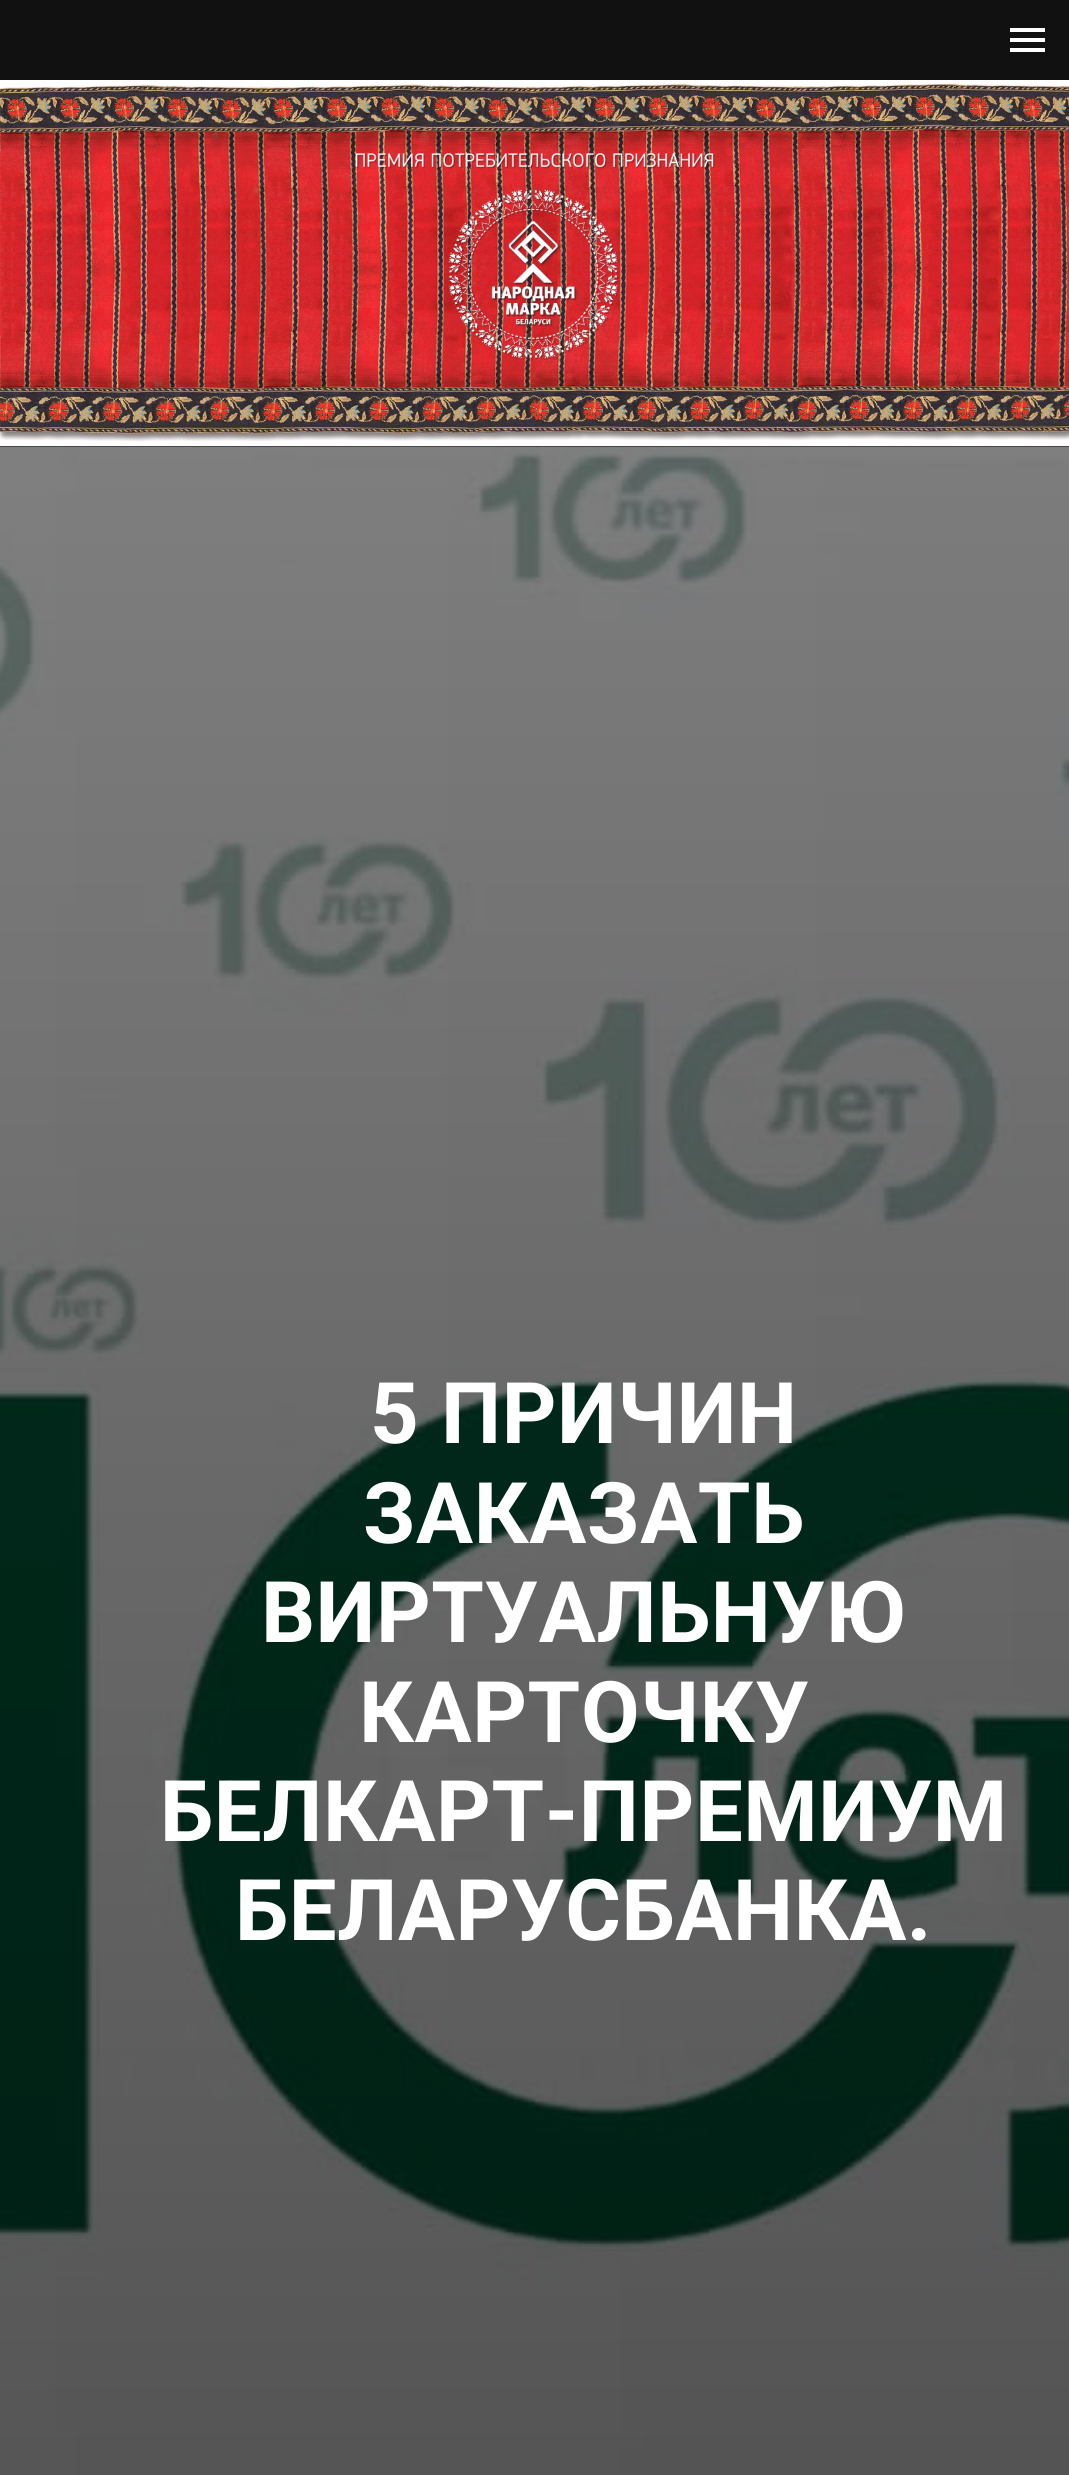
import math
import cairo

surface = cairo.ImageSurface(cairo.FORMAT_RGB24, 1069, 2475)
ctx = cairo.Context(surface)
options = cairo.FontOptions()
options.set_hint_metrics(cairo.HINT_METRICS_OFF)
options.set_hint_style(cairo.HINT_STYLE_NONE)
ctx.set_font_options(options)
ctx.set_miter_limit(4)


def spaced_text(x, y, s, letter, word):
    ctx.move_to(x, y)
    for ch in s:
        ctx.show_text(ch)
        ctx.rel_move_to(letter + word * (ch == ' '), 0)


def picture(path, x, y, w, h):
    ctx.save()
    ctx.set_source_surface(cairo.ImageSurface.create_from_png(path), x, y)
    ctx.rectangle(x, y, w, h)
    ctx.fill()
    ctx.restore()


ctx.set_source_rgb(1, 1, 1)
ctx.paint()
ctx.set_source_rgb(0.067, 0.067, 0.067)
ctx.rectangle(0, 0, 1069, 80)
ctx.fill()
ctx.set_source_rgb(1, 1, 1)
ctx.rectangle(1010, 28, 35, 4)
ctx.fill()
ctx.rectangle(1010, 38, 35, 4)
ctx.fill()
ctx.rectangle(1010, 48, 35, 4)
ctx.fill()
picture("img1.png", 0, 83, 1069, 359)
ctx.set_source_rgb(0, 0, 0)
ctx.rectangle(0, 446, 1069, 1)
ctx.fill()
picture("img2.png", 0, 446, 1069, 2029)
gradient = cairo.LinearGradient(535, 446, 535, 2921)
gradient.add_color_stop_rgba(0, 0, 0, 0, 0.5)
gradient.add_color_stop_rgba(1, 0, 0, 0, 0.7)
ctx.set_source(gradient)
ctx.rectangle(0, 446, 1069, 2029)
ctx.fill()
ctx.select_font_face("Roboto", cairo.FONT_SLANT_NORMAL, cairo.FONT_WEIGHT_BOLD)
ctx.set_font_size(85)
ctx.set_source_rgb(1, 1, 1)
spaced_text(370, 1443, "5 ПРИЧИН", 0.6, 0)
spaced_text(363, 1543, "ЗАКАЗАТЬ", 0.6, 0)
spaced_text(261, 1642, "ВИРТУАЛЬНУЮ", 0.6, 0)
spaced_text(359, 1742, "КАРТОЧКУ", 0.6, 0)
spaced_text(160, 1841, "БЕЛКАРТ-ПРЕМИУМ", 0.6, 0)
spaced_text(235, 1940, "БЕЛАРУСБАНКА.", 0.6, 0)
surface.write_to_png("page.png")
